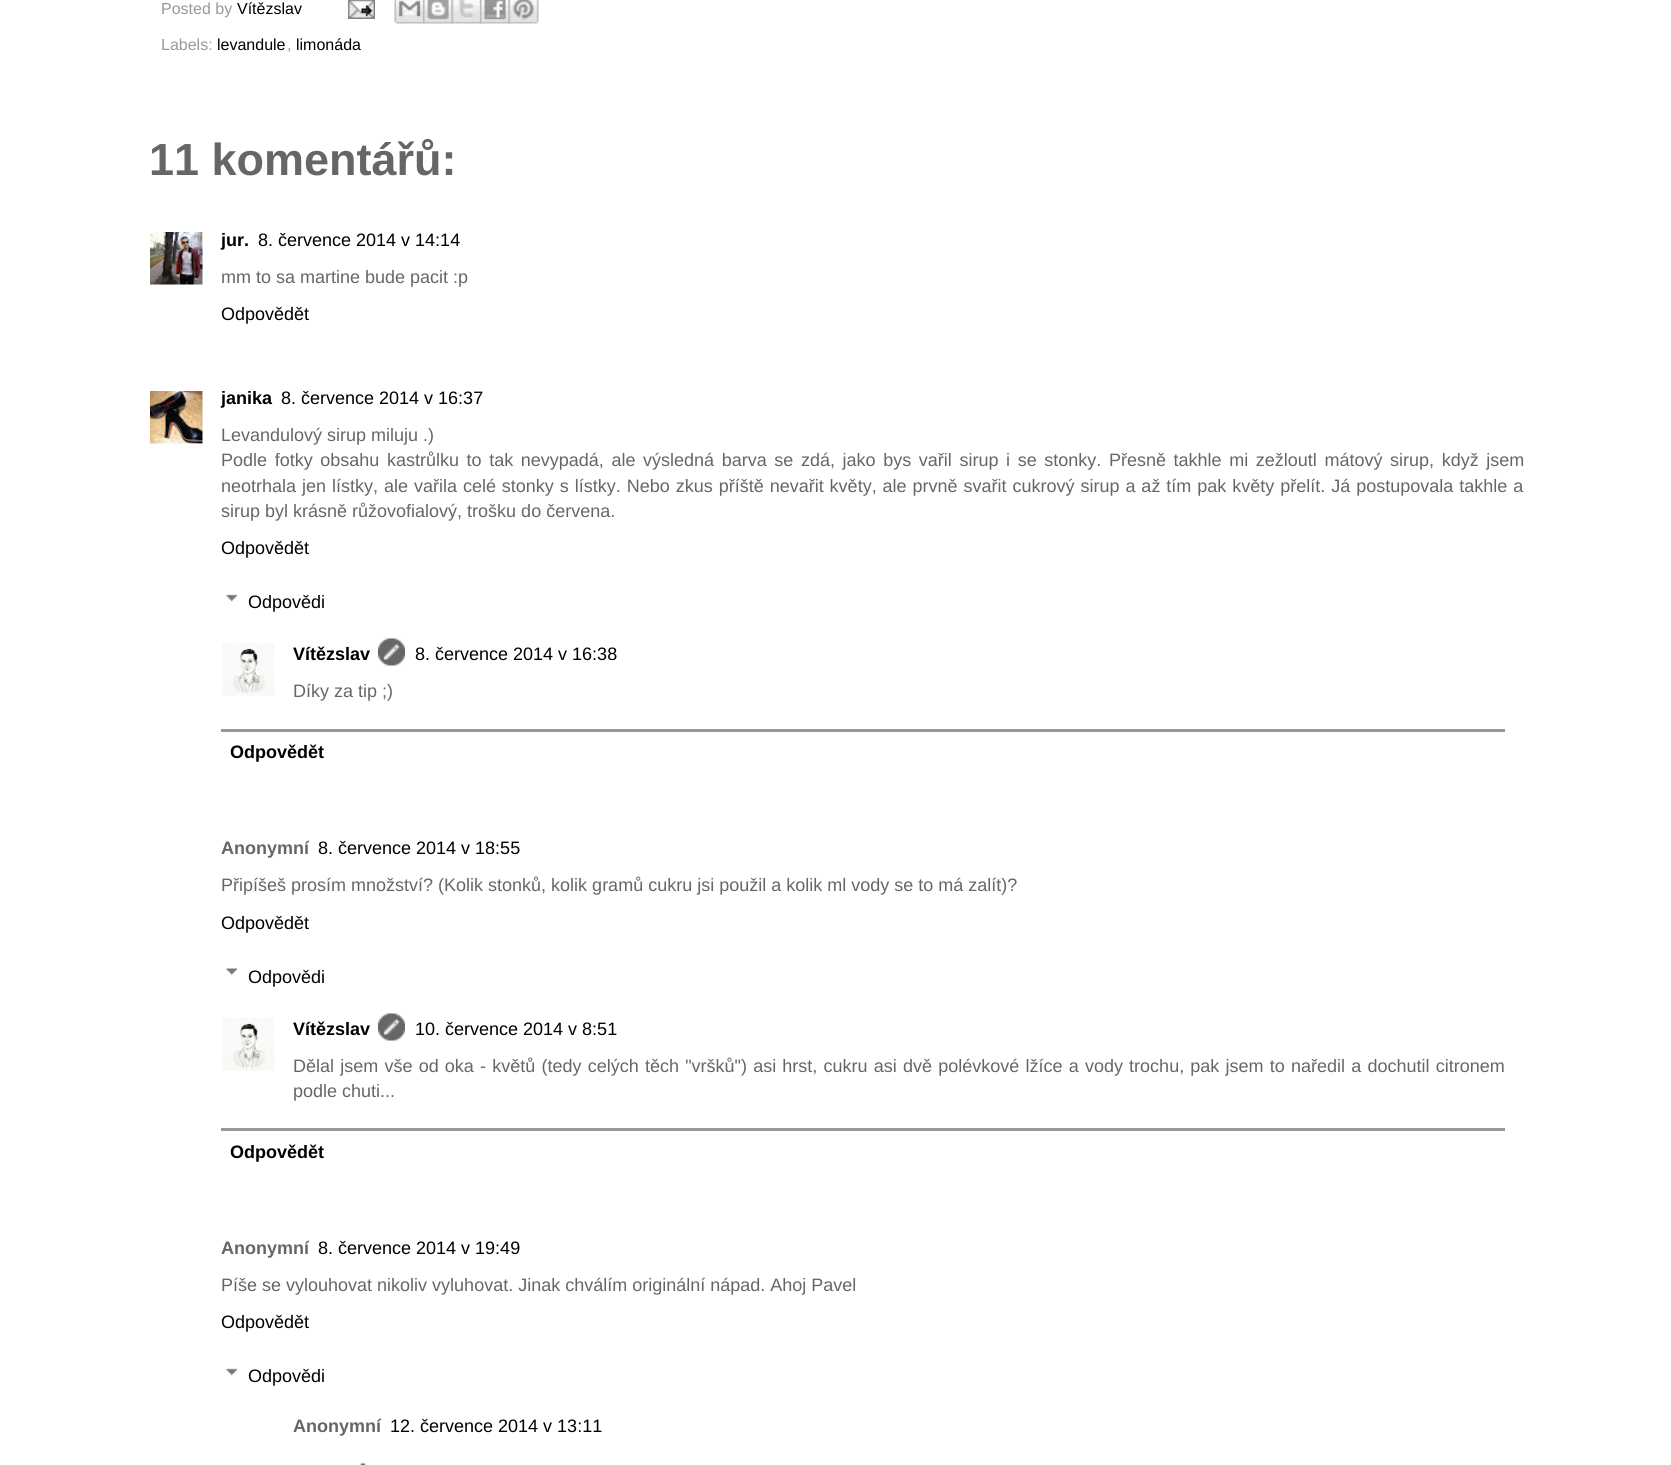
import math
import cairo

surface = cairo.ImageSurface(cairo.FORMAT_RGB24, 1671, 1465)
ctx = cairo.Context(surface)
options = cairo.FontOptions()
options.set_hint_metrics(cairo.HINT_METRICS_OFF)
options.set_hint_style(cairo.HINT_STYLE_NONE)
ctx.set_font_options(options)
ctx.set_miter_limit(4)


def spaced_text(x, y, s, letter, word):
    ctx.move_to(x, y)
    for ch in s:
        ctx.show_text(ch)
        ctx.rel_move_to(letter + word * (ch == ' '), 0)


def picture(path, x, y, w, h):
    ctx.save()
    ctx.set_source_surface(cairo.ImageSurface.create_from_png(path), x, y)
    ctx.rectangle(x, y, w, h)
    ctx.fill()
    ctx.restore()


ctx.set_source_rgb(1, 1, 1)
ctx.paint()
ctx.select_font_face("Liberation Sans")
ctx.set_font_size(16)
ctx.set_source_rgb(0.6, 0.6, 0.6)
ctx.move_to(161, 14)
ctx.show_text("Posted by")
ctx.set_source_rgb(0, 0, 0)
ctx.move_to(237, 14)
ctx.show_text("Vítězslav")
picture("img1.png", 348, 0, 27, 19)
picture("img2.png", 394, 0, 31, 24)
picture("img3.png", 423, 0, 30, 24)
picture("img4.png", 451, 0, 31, 24)
picture("img5.png", 480, 0, 30, 24)
picture("img6.png", 508, 0, 31, 24)
ctx.set_source_rgb(0.6, 0.6, 0.6)
ctx.move_to(161, 50)
ctx.show_text("Labels:")
ctx.set_source_rgb(0, 0, 0)
ctx.move_to(217, 50)
ctx.show_text("levandule")
ctx.set_source_rgb(0.6, 0.6, 0.6)
ctx.move_to(287, 50)
ctx.show_text(",")
ctx.set_source_rgb(0, 0, 0)
ctx.move_to(296, 50)
ctx.show_text("limonáda")
ctx.select_font_face("Liberation Sans", cairo.FONT_SLANT_NORMAL, cairo.FONT_WEIGHT_BOLD)
ctx.set_font_size(45)
ctx.set_source_rgb(0.4, 0.4, 0.4)
ctx.move_to(149, 175)
ctx.show_text("11 komentářů:")
picture("img7.png", 150, 232, 53, 53)
ctx.set_font_size(18)
ctx.set_source_rgb(0, 0, 0)
ctx.move_to(221, 246)
ctx.show_text("jur.")
ctx.select_font_face("Liberation Sans")
ctx.move_to(258, 246)
ctx.show_text("8. července 2014 v 14:14")
ctx.set_source_rgb(0.4, 0.4, 0.4)
ctx.move_to(221, 283)
ctx.show_text("mm to sa martine bude pacit :p")
ctx.set_source_rgb(0, 0, 0)
ctx.move_to(221, 320)
ctx.show_text("Odpovědět")
picture("img8.png", 150, 391, 53, 53)
ctx.select_font_face("Liberation Sans", cairo.FONT_SLANT_NORMAL, cairo.FONT_WEIGHT_BOLD)
ctx.move_to(221, 404)
ctx.show_text("janika")
ctx.select_font_face("Liberation Sans")
ctx.move_to(281, 404)
ctx.show_text("8. července 2014 v 16:37")
ctx.set_source_rgb(0.4, 0.4, 0.4)
ctx.move_to(221, 441)
ctx.show_text("Levandulový sirup miluju .)")
spaced_text(221, 466, "Podle fotky obsahu kastrůlku to tak nevypadá, ale výsledná barva se zdá, jako bys vařil sirup i se stonky. Přesně takhle mi zežloutl mátový sirup, když jsem", 0, 2.6)
spaced_text(221, 492, "neotrhala jen lístky, ale vařila celé stonky s lístky. Nebo zkus příště nevařit květy, ale prvně svařit cukrový sirup a až tím pak květy přelít. Já postupovala takhle a", 0, 0.95)
ctx.move_to(221, 517)
ctx.show_text("sirup byl krásně růžovofialový, trošku do červena.")
ctx.set_source_rgb(0, 0, 0)
ctx.move_to(221, 554)
ctx.show_text("Odpovědět")
picture("img9.png", 226, 594, 11, 8)
ctx.move_to(248, 608)
ctx.show_text("Odpovědi")
picture("img10.png", 222, 643, 53, 53)
ctx.select_font_face("Liberation Sans", cairo.FONT_SLANT_NORMAL, cairo.FONT_WEIGHT_BOLD)
ctx.move_to(293, 660)
ctx.show_text("Vítězslav")
picture("img11.png", 378, 638, 27, 28)
ctx.select_font_face("Liberation Sans")
ctx.move_to(415, 660)
ctx.show_text("8. července 2014 v 16:38")
ctx.set_source_rgb(0.4, 0.4, 0.4)
ctx.move_to(293, 697)
ctx.show_text("Díky za tip ;)")
ctx.set_source_rgb(0.6, 0.6, 0.6)
ctx.rectangle(221, 729, 1284, 3)
ctx.fill()
ctx.select_font_face("Liberation Sans", cairo.FONT_SLANT_NORMAL, cairo.FONT_WEIGHT_BOLD)
ctx.set_source_rgb(0, 0, 0)
ctx.move_to(230, 758)
ctx.show_text("Odpovědět")
ctx.set_source_rgb(0.4, 0.4, 0.4)
ctx.move_to(221, 854)
ctx.show_text("Anonymní")
ctx.select_font_face("Liberation Sans")
ctx.set_source_rgb(0, 0, 0)
ctx.move_to(318, 854)
ctx.show_text("8. července 2014 v 18:55")
ctx.set_source_rgb(0.4, 0.4, 0.4)
ctx.move_to(221, 891)
ctx.show_text("Připíšeš prosím množství? (Kolik stonků, kolik gramů cukru jsi použil a kolik ml vody se to má zalít)?")
ctx.set_source_rgb(0, 0, 0)
ctx.move_to(221, 929)
ctx.show_text("Odpovědět")
picture("img12.png", 226, 968, 11, 7)
ctx.move_to(248, 983)
ctx.show_text("Odpovědi")
picture("img10.png", 222, 1018, 53, 53)
ctx.select_font_face("Liberation Sans", cairo.FONT_SLANT_NORMAL, cairo.FONT_WEIGHT_BOLD)
ctx.move_to(293, 1035)
ctx.show_text("Vítězslav")
picture("img11.png", 378, 1013, 27, 28)
ctx.select_font_face("Liberation Sans")
ctx.move_to(415, 1035)
ctx.show_text("10. července 2014 v 8:51")
ctx.set_source_rgb(0.4, 0.4, 0.4)
spaced_text(293, 1072, "Dělal jsem vše od oka - květů (tedy celých těch \"vršků\") asi hrst, cukru asi dvě polévkové lžíce a vody trochu, pak jsem to naředil a dochutil citronem", 0, 1.2)
ctx.move_to(293, 1097)
ctx.show_text("podle chuti...")
ctx.set_source_rgb(0.6, 0.6, 0.6)
ctx.rectangle(221, 1128, 1284, 3)
ctx.fill()
ctx.select_font_face("Liberation Sans", cairo.FONT_SLANT_NORMAL, cairo.FONT_WEIGHT_BOLD)
ctx.set_source_rgb(0, 0, 0)
ctx.move_to(230, 1158)
ctx.show_text("Odpovědět")
ctx.set_source_rgb(0.4, 0.4, 0.4)
ctx.move_to(221, 1254)
ctx.show_text("Anonymní")
ctx.select_font_face("Liberation Sans")
ctx.set_source_rgb(0, 0, 0)
ctx.move_to(318, 1254)
ctx.show_text("8. července 2014 v 19:49")
ctx.set_source_rgb(0.4, 0.4, 0.4)
ctx.move_to(221, 1291)
ctx.show_text("Píše se vylouhovat nikoliv vyluhovat. Jinak chválím originální nápad. Ahoj Pavel")
ctx.set_source_rgb(0, 0, 0)
ctx.move_to(221, 1328)
ctx.show_text("Odpovědět")
picture("img9.png", 226, 1368, 11, 8)
ctx.move_to(248, 1382)
ctx.show_text("Odpovědi")
ctx.select_font_face("Liberation Sans", cairo.FONT_SLANT_NORMAL, cairo.FONT_WEIGHT_BOLD)
ctx.set_source_rgb(0.4, 0.4, 0.4)
ctx.move_to(293, 1432)
ctx.show_text("Anonymní")
ctx.select_font_face("Liberation Sans")
ctx.set_source_rgb(0, 0, 0)
ctx.move_to(390, 1432)
ctx.show_text("12. července 2014 v 13:11")
ctx.set_source_rgb(0.4, 0.4, 0.4)
ctx.move_to(360, 1469)
ctx.show_text("-")
surface.write_to_png("page.png")
